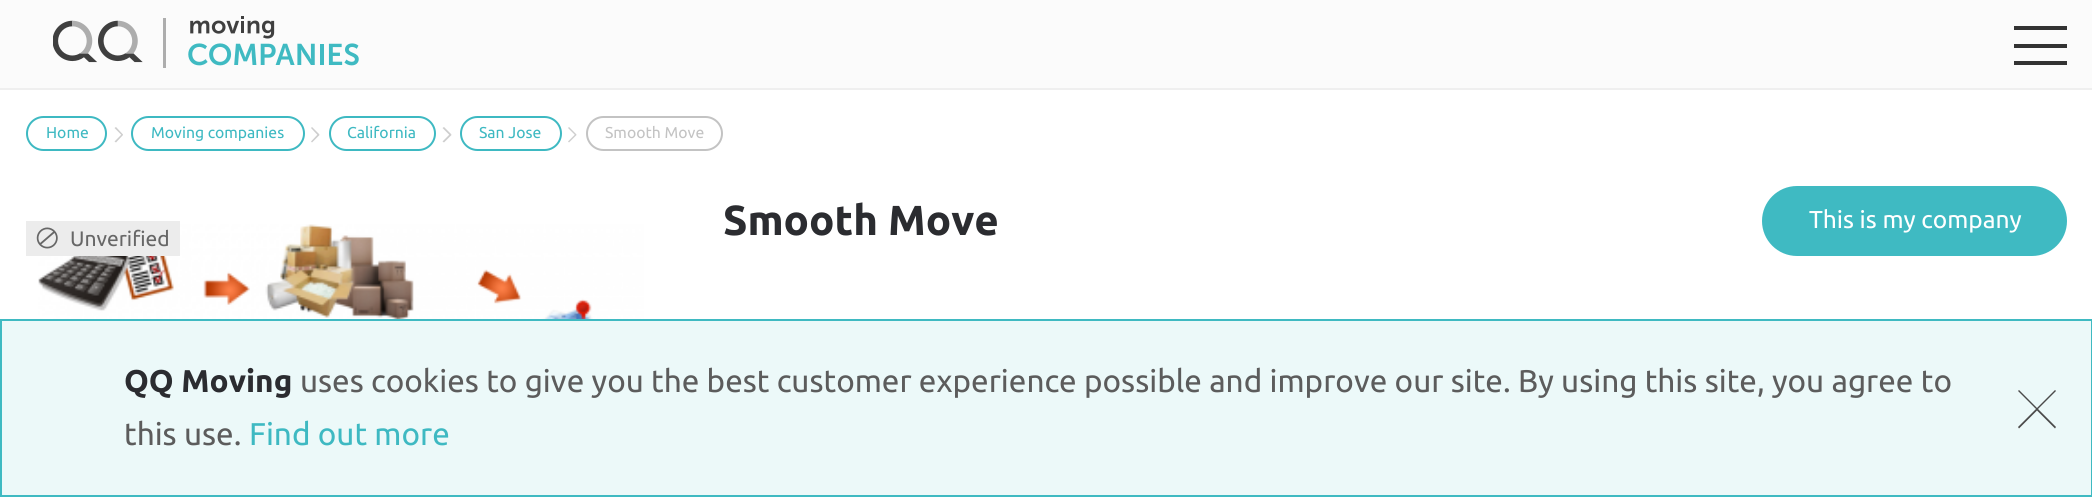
import math
import cairo

surface = cairo.ImageSurface(cairo.FORMAT_RGB24, 2092, 497)
ctx = cairo.Context(surface)
options = cairo.FontOptions()
options.set_hint_metrics(cairo.HINT_METRICS_OFF)
options.set_hint_style(cairo.HINT_STYLE_NONE)
ctx.set_font_options(options)
ctx.set_miter_limit(4)


def round_rect(x, y, w, h, r):
    ctx.new_sub_path()
    for i, (u, v) in enumerate([(x + w - r, y + h - r), (x + r, y + h - r), (x + r, y + r), (x + w - r, y + r)]):
        ctx.arc(u, v, r, i * math.pi / 2, (i + 1) * math.pi / 2)
    ctx.close_path()


def picture(path, x, y, w, h):
    ctx.save()
    ctx.set_source_surface(cairo.ImageSurface.create_from_png(path), x, y)
    ctx.rectangle(x, y, w, h)
    ctx.fill()
    ctx.restore()


ctx.set_source_rgb(1, 1, 1)
ctx.paint()
ctx.set_source_rgb(0.984, 0.984, 0.984)
ctx.rectangle(0, 0, 2092, 88)
ctx.fill()
ctx.set_source_rgb(0.937, 0.937, 0.937)
ctx.rectangle(0, 88, 2092, 2)
ctx.fill()
picture("img1.png", 53, 16, 306, 52)
ctx.set_source_rgb(0.2, 0.2, 0.2)
ctx.rectangle(2014, 26, 53, 4)
ctx.fill()
ctx.rectangle(2014, 44, 53, 4)
ctx.fill()
ctx.rectangle(2014, 61, 53, 4)
ctx.fill()
round_rect(27, 117, 79, 33, 16.5)
ctx.set_source_rgb(0.243, 0.725, 0.761)
ctx.stroke()
ctx.select_font_face("Ubuntu")
ctx.set_font_size(15.75)
ctx.move_to(46, 138)
ctx.show_text("Home")
ctx.set_source_rgb(0.808, 0.808, 0.808)
ctx.new_path()
ctx.move_to(114.5, 128)
ctx.line_to(116, 127)
ctx.line_to(123, 134.5)
ctx.line_to(122, 135.5)
ctx.close_path()
ctx.fill()
ctx.new_path()
ctx.move_to(122, 134)
ctx.line_to(123, 135)
ctx.line_to(116, 142.5)
ctx.line_to(114.5, 141.5)
ctx.close_path()
ctx.fill()
round_rect(132, 117, 172, 33, 16.5)
ctx.set_source_rgb(0.243, 0.725, 0.761)
ctx.stroke()
ctx.move_to(151, 138)
ctx.show_text("Moving companies")
ctx.set_source_rgb(0.808, 0.808, 0.808)
ctx.new_path()
ctx.move_to(311, 128)
ctx.line_to(312, 127)
ctx.line_to(319.5, 134.5)
ctx.line_to(318, 135.5)
ctx.close_path()
ctx.fill()
ctx.new_path()
ctx.move_to(318, 134)
ctx.line_to(319.5, 135)
ctx.line_to(312, 142.5)
ctx.line_to(311, 141.5)
ctx.close_path()
ctx.fill()
round_rect(330, 117, 105, 33, 16.5)
ctx.set_source_rgb(0.243, 0.725, 0.761)
ctx.stroke()
ctx.move_to(347, 138)
ctx.show_text("California")
ctx.set_source_rgb(0.808, 0.808, 0.808)
ctx.new_path()
ctx.move_to(442.5, 128)
ctx.line_to(444, 127)
ctx.line_to(451.5, 134.5)
ctx.line_to(450, 135.5)
ctx.close_path()
ctx.fill()
ctx.new_path()
ctx.move_to(450, 134)
ctx.line_to(451.5, 135)
ctx.line_to(444, 142.5)
ctx.line_to(442.5, 141.5)
ctx.close_path()
ctx.fill()
round_rect(461, 117, 100, 33, 16.5)
ctx.set_source_rgb(0.243, 0.725, 0.761)
ctx.stroke()
ctx.move_to(479, 138)
ctx.show_text("San Jose")
ctx.set_source_rgb(0.808, 0.808, 0.808)
ctx.new_path()
ctx.move_to(568, 128)
ctx.line_to(569, 127)
ctx.line_to(576.5, 134.5)
ctx.line_to(575.5, 135.5)
ctx.close_path()
ctx.fill()
ctx.new_path()
ctx.move_to(575.5, 134)
ctx.line_to(576.5, 135)
ctx.line_to(569, 142.5)
ctx.line_to(568, 141.5)
ctx.close_path()
ctx.fill()
round_rect(587, 117, 135, 33, 16.5)
ctx.set_source_rgb(0.765, 0.765, 0.765)
ctx.stroke()
ctx.move_to(605, 138)
ctx.show_text("Smooth Move")
ctx.select_font_face("Ubuntu", cairo.FONT_SLANT_NORMAL, cairo.FONT_WEIGHT_BOLD)
ctx.set_font_size(42)
ctx.set_source_rgb(0.169, 0.173, 0.188)
ctx.move_to(723, 235)
ctx.show_text("Smooth Move")
ctx.set_source_rgb(0.247, 0.729, 0.761)
round_rect(1763, 187, 303, 68, 34)
ctx.fill_preserve()
ctx.stroke()
ctx.select_font_face("Ubuntu")
ctx.set_font_size(24.5)
ctx.set_source_rgb(1, 1, 1)
ctx.move_to(1809, 228)
ctx.show_text("This is my company")
picture("img2.png", 38, 224, 606, 95)
ctx.set_source_rgb(0.922, 0.922, 0.922)
ctx.rectangle(26, 221, 154, 35)
ctx.fill()
picture("img3.png", 36, 227, 22, 22)
ctx.set_font_size(21)
ctx.set_source_rgb(0.404, 0.404, 0.404)
ctx.move_to(70, 246)
ctx.show_text("Unverified")
ctx.set_source_rgb(0.925, 0.973, 0.976)
ctx.rectangle(1, 320, 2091, 176)
ctx.fill_preserve()
ctx.set_source_rgb(0.247, 0.729, 0.761)
ctx.stroke()
ctx.select_font_face("Ubuntu", cairo.FONT_SLANT_NORMAL, cairo.FONT_WEIGHT_BOLD)
ctx.set_font_size(31.5)
ctx.set_source_rgb(0.169, 0.173, 0.188)
ctx.move_to(124, 392)
ctx.show_text("QQ Moving")
ctx.select_font_face("Ubuntu")
ctx.set_source_rgb(0.361, 0.361, 0.361)
ctx.move_to(300, 392)
ctx.show_text("uses cookies to give you the best customer experience possible and improve our site. By using this site, you agree to")
ctx.move_to(124, 445)
ctx.show_text("this use.")
ctx.set_source_rgb(0.243, 0.725, 0.761)
ctx.move_to(249, 445)
ctx.show_text("Find out more")
ctx.set_source_rgb(0.294, 0.294, 0.294)
ctx.new_path()
ctx.move_to(2056, 391)
ctx.line_to(2055, 390)
ctx.line_to(2037, 408)
ctx.line_to(2019, 390)
ctx.line_to(2018, 391)
ctx.line_to(2036, 409)
ctx.line_to(2018, 427)
ctx.line_to(2019, 428.5)
ctx.line_to(2037, 410.5)
ctx.line_to(2055, 428.5)
ctx.line_to(2056, 427)
ctx.line_to(2038, 409)
ctx.close_path()
ctx.fill()
surface.write_to_png("page.png")
